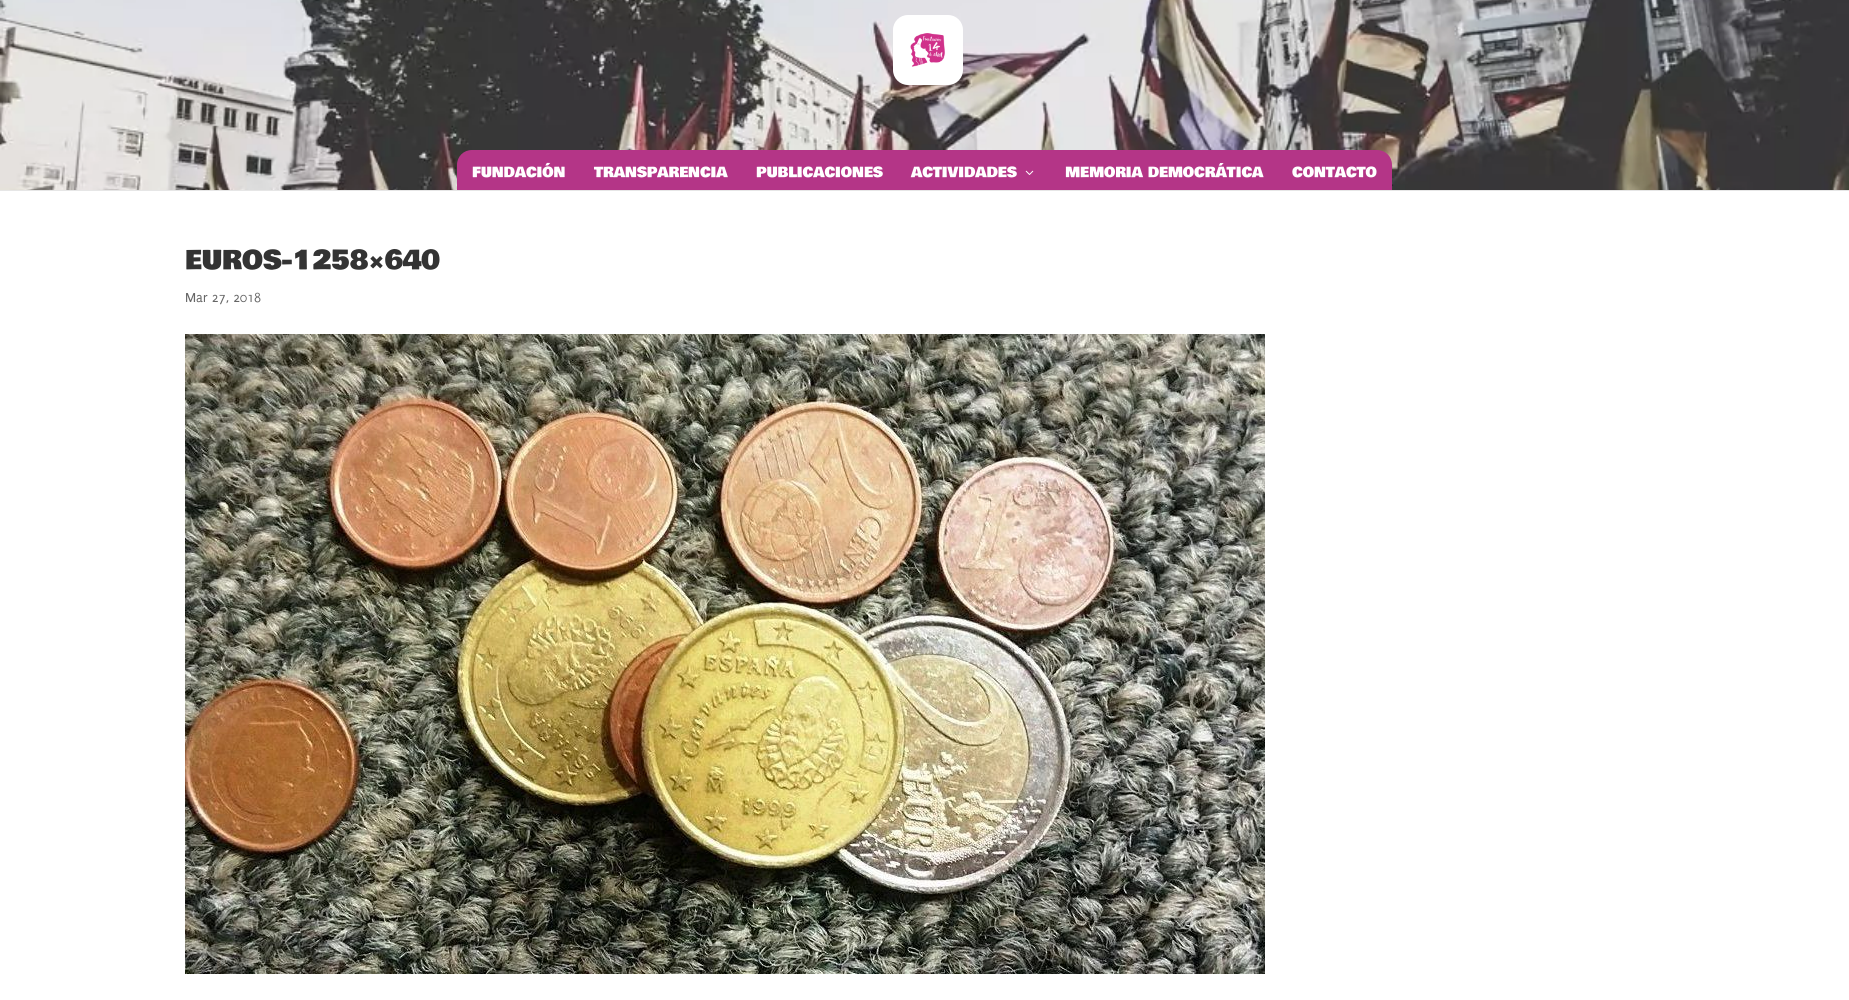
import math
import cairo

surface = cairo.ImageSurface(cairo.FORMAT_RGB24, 1849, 1000)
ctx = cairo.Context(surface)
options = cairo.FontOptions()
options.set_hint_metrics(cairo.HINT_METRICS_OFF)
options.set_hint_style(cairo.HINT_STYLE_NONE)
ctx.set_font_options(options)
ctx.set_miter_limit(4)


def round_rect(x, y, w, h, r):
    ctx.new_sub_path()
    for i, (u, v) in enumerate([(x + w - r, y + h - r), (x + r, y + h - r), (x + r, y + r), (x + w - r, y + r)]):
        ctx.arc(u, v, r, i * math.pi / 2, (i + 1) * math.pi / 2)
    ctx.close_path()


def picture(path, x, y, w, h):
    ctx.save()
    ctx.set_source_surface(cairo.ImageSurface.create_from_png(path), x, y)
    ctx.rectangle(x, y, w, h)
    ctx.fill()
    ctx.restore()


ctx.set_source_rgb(1, 1, 1)
ctx.paint()
ctx.set_source_rgb(0.902, 0.902, 0.902)
ctx.rectangle(0, 190, 1849, 1)
ctx.fill()
picture("img1.png", 0, 0, 1849, 190)
ctx.set_source_rgb(1, 1, 1)
round_rect(893, 15, 70, 70, 15)
ctx.fill()
picture("img2.png", 910, 33, 35, 34)
ctx.set_source_rgb(0.706, 0.208, 0.529)
ctx.new_path()
ctx.move_to(472, 150)
ctx.line_to(1377, 150)
ctx.curve_to(1385.5, 150, 1392, 156.5, 1392, 165)
ctx.line_to(1392, 190)
ctx.line_to(457, 190)
ctx.line_to(457, 165)
ctx.curve_to(457, 156.5, 463.5, 150, 472, 150)
ctx.close_path()
ctx.fill()
ctx.select_font_face("Bowlby One")
ctx.set_font_size(14)
ctx.set_source_rgb(1, 1, 1)
ctx.move_to(472, 177)
ctx.show_text("FUNDACIÓN")
ctx.move_to(594, 177)
ctx.show_text("TRANSPARENCIA")
ctx.move_to(756, 177)
ctx.show_text("PUBLICACIONES")
ctx.move_to(911, 177)
ctx.show_text("ACTIVIDADES")
picture("img3.png", 1025, 170, 9, 5)
ctx.move_to(1065, 177)
ctx.show_text("MEMORIA DEMOCRÁTICA")
ctx.move_to(1292, 177)
ctx.show_text("CONTACTO")
ctx.set_font_size(26)
ctx.set_source_rgb(0.2, 0.2, 0.2)
ctx.move_to(185, 269)
ctx.show_text("EUROS-1258×640")
ctx.select_font_face("Puritan")
ctx.set_font_size(14)
ctx.set_source_rgb(0.4, 0.4, 0.4)
ctx.move_to(185, 302)
ctx.show_text("Mar 27, 2018")
picture("img4.png", 185, 334, 1080, 640)
surface.write_to_png("page.png")
